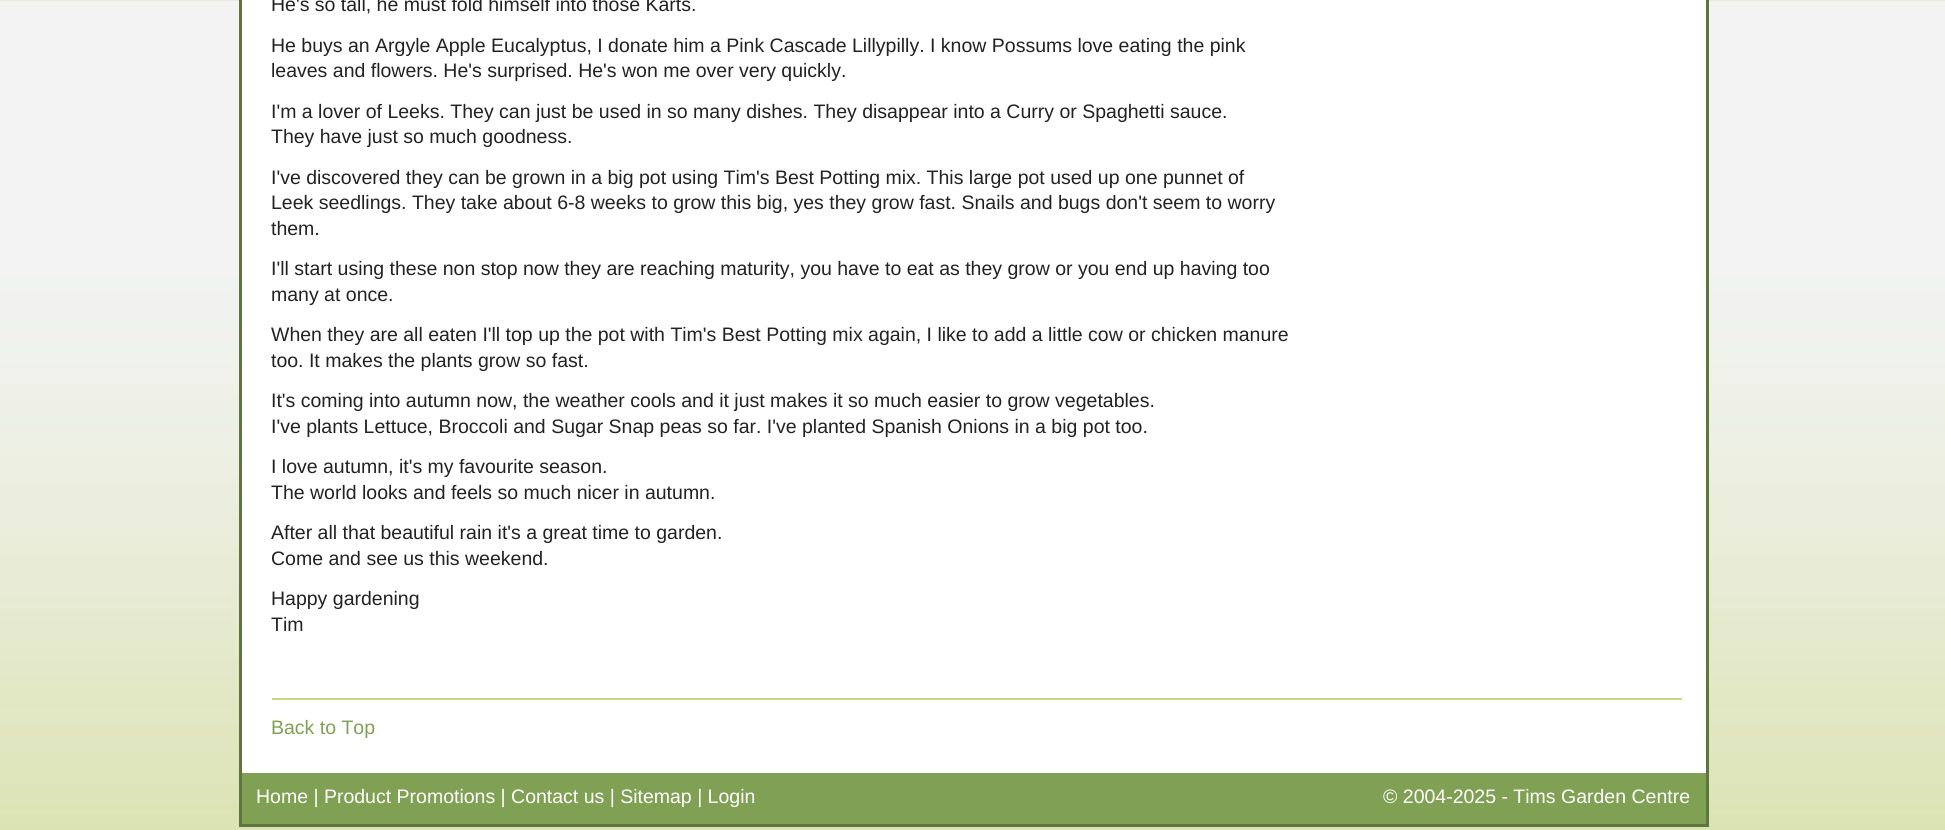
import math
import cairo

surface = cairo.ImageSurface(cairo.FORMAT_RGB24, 1945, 830)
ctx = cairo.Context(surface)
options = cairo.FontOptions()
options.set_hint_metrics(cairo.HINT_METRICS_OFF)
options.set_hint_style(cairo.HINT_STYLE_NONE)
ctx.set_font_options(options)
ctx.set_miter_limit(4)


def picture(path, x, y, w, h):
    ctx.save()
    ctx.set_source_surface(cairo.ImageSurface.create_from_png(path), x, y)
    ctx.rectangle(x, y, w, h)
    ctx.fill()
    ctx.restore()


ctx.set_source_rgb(0.796, 0.843, 0.518)
ctx.paint()
picture("img1.png", 0, 0, 1945, 830)
ctx.set_source_rgb(1, 1, 1)
ctx.rectangle(242, 0, 1464, 773)
ctx.fill()
ctx.set_source_rgb(0.369, 0.463, 0.243)
ctx.rectangle(1706, 0, 3, 827)
ctx.fill()
ctx.rectangle(239, 824, 1470, 3)
ctx.fill()
ctx.rectangle(239, 0, 3, 827)
ctx.fill()
ctx.select_font_face("Liberation Sans")
ctx.set_font_size(19.5)
ctx.set_source_rgb(0.133, 0.133, 0.133)
ctx.move_to(271, 11)
ctx.show_text("He's so tall, he must fold himself into those Karts.")
ctx.move_to(271, 52)
ctx.show_text("He buys an Argyle Apple Eucalyptus, I donate him a Pink Cascade Lillypilly. I know Possums love eating the pink")
ctx.move_to(271, 77)
ctx.show_text("leaves and flowers. He's surprised. He's won me over very quickly.")
ctx.move_to(271, 118)
ctx.show_text("I'm a lover of Leeks. They can just be used in so many dishes. They disappear into a Curry or Spaghetti sauce.")
ctx.move_to(271, 143)
ctx.show_text("They have just so much goodness.")
ctx.move_to(271, 184)
ctx.show_text("I've discovered they can be grown in a big pot using Tim's Best Potting mix. This large pot used up one punnet of")
ctx.move_to(271, 209)
ctx.show_text("Leek seedlings. They take about 6-8 weeks to grow this big, yes they grow fast. Snails and bugs don't seem to worry")
ctx.move_to(271, 235)
ctx.show_text("them.")
ctx.move_to(271, 275)
ctx.show_text("I'll start using these non stop now they are reaching maturity, you have to eat as they grow or you end up having too")
ctx.move_to(271, 301)
ctx.show_text("many at once.")
ctx.move_to(271, 341)
ctx.show_text("When they are all eaten I'll top up the pot with Tim's Best Potting mix again, I like to add a little cow or chicken manure")
ctx.move_to(271, 367)
ctx.show_text("too. It makes the plants grow so fast.")
ctx.move_to(271, 407)
ctx.show_text("It's coming into autumn now, the weather cools and it just makes it so much easier to grow vegetables.")
ctx.move_to(271, 433)
ctx.show_text("I've plants Lettuce, Broccoli and Sugar Snap peas so far. I've planted Spanish Onions in a big pot too.")
ctx.move_to(271, 473)
ctx.show_text("I love autumn, it's my favourite season.")
ctx.move_to(271, 499)
ctx.show_text("The world looks and feels so much nicer in autumn.")
ctx.move_to(271, 539)
ctx.show_text("After all that beautiful rain it's a great time to garden.")
ctx.move_to(271, 565)
ctx.show_text("Come and see us this weekend.")
ctx.move_to(271, 605)
ctx.show_text("Happy gardening")
ctx.move_to(271, 631)
ctx.show_text("Tim")
ctx.set_source_rgb(0.792, 0.839, 0.514)
ctx.rectangle(272, 698, 1410, 2)
ctx.fill()
ctx.set_source_rgb(0.502, 0.631, 0.329)
ctx.move_to(271, 734)
ctx.show_text("Back to Top")
ctx.rectangle(242, 773, 1464, 51)
ctx.fill()
ctx.set_source_rgb(1, 1, 1)
ctx.move_to(256, 803)
ctx.show_text("Home | Product Promotions | Contact us | Sitemap | Login")
ctx.move_to(1383, 803)
ctx.show_text("© 2004-2025 - Tims Garden Centre")
surface.write_to_png("page.png")
